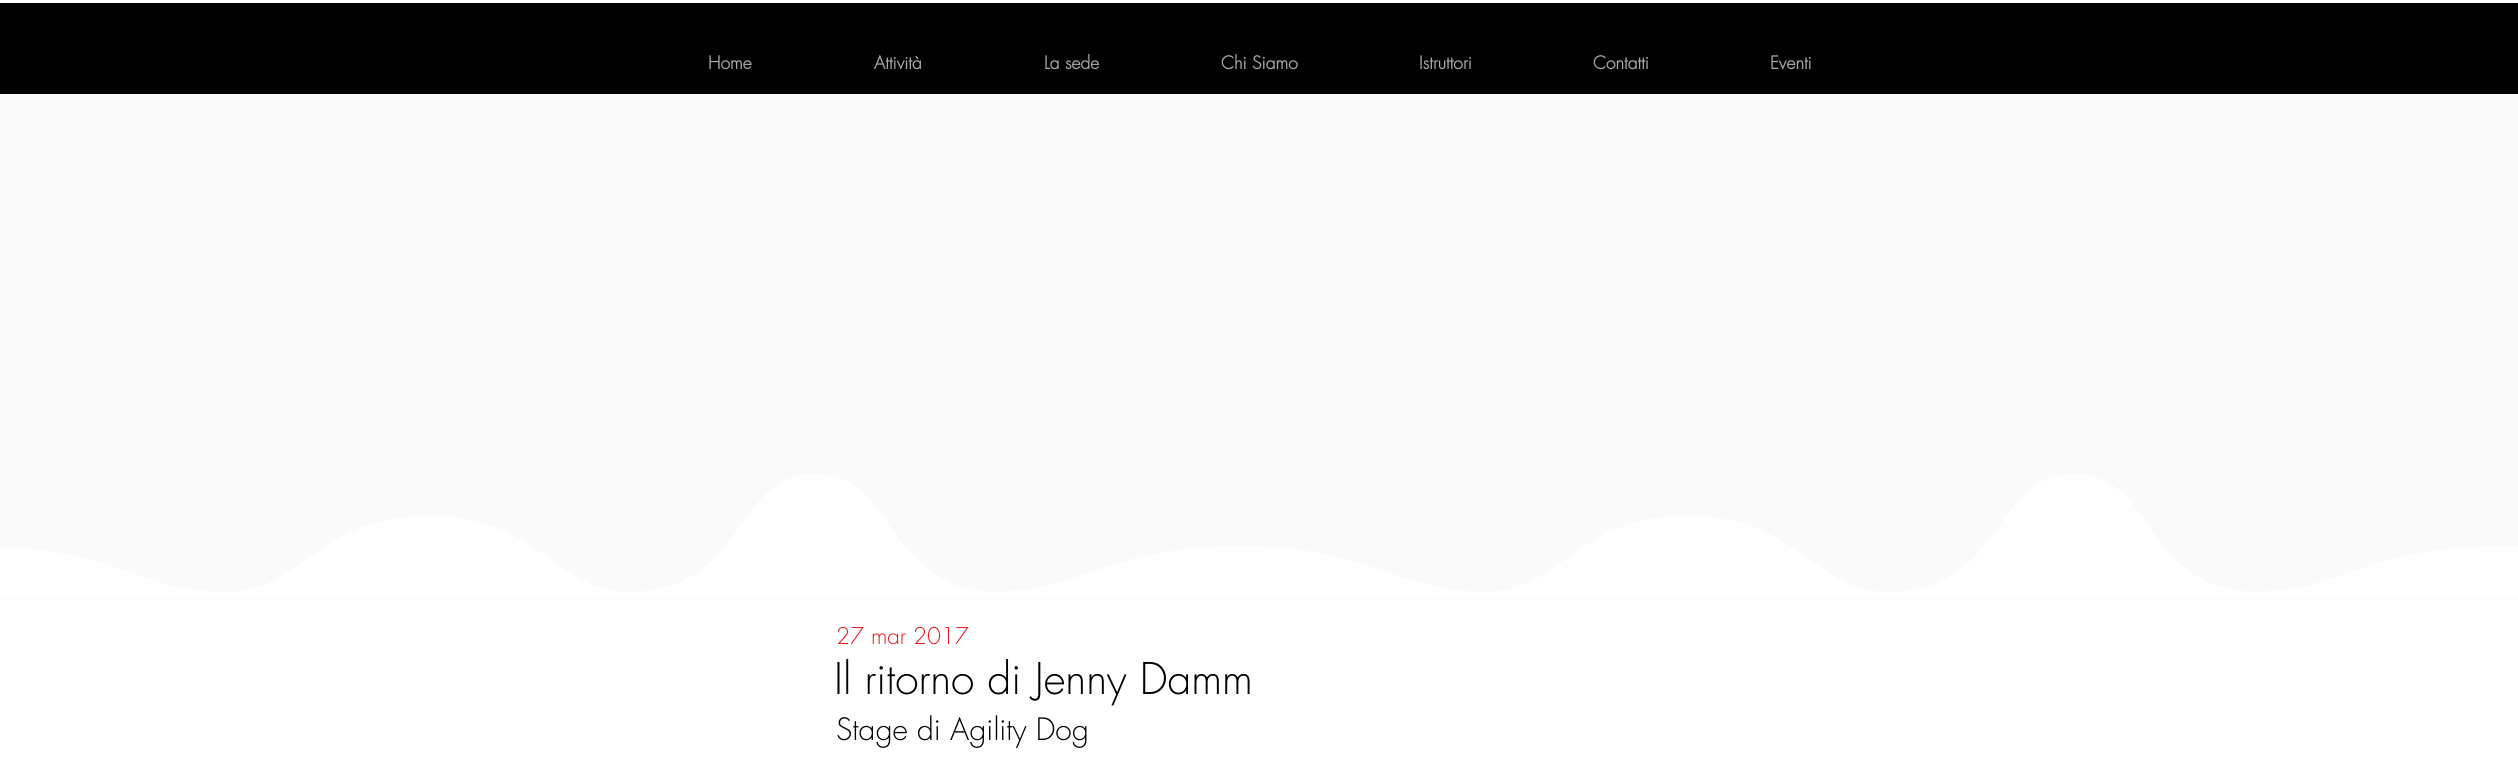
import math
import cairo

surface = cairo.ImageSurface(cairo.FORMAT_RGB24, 2518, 778)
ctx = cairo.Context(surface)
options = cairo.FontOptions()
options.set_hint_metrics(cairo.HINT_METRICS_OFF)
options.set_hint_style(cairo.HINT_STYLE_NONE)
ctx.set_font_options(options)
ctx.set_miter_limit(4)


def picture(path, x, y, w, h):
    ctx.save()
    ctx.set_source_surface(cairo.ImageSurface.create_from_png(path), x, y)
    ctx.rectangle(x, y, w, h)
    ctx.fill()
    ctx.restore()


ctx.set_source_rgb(1, 1, 1)
ctx.paint()
ctx.set_source_rgb(0, 0, 0)
ctx.rectangle(0, 3, 2518, 91)
ctx.fill()
ctx.select_font_face("futura", cairo.FONT_SLANT_NORMAL, cairo.FONT_WEIGHT_BOLD)
ctx.set_font_size(17.5)
ctx.set_source_rgb(0.663, 0.663, 0.663)
ctx.move_to(708, 69)
ctx.show_text("Home")
ctx.move_to(874, 69)
ctx.show_text("Attività")
ctx.move_to(1044, 69)
ctx.show_text("La sede")
ctx.move_to(1221, 69)
ctx.show_text("Chi Siamo")
ctx.move_to(1419, 69)
ctx.show_text("Istruttori")
ctx.move_to(1593, 69)
ctx.show_text("Contatti")
ctx.move_to(1770, 69)
ctx.show_text("Eventi")
ctx.set_source_rgb(0.98, 0.98, 0.98)
ctx.rectangle(0, 94, 2518, 505)
ctx.fill()
picture("img1.png", 0, 474, 2518, 124)
ctx.select_font_face("futura Light")
ctx.set_font_size(22.5)
ctx.set_source_rgb(0.886, 0.11, 0.129)
ctx.move_to(836, 644)
ctx.show_text("27 mar 2017")
ctx.set_font_size(42.5)
ctx.set_source_rgb(0, 0, 0)
ctx.move_to(834, 694)
ctx.show_text("Il ritorno di Jenny Damm")
ctx.set_font_size(30)
ctx.move_to(836, 740)
ctx.show_text("Stage di Agility Dog")
surface.write_to_png("page.png")
